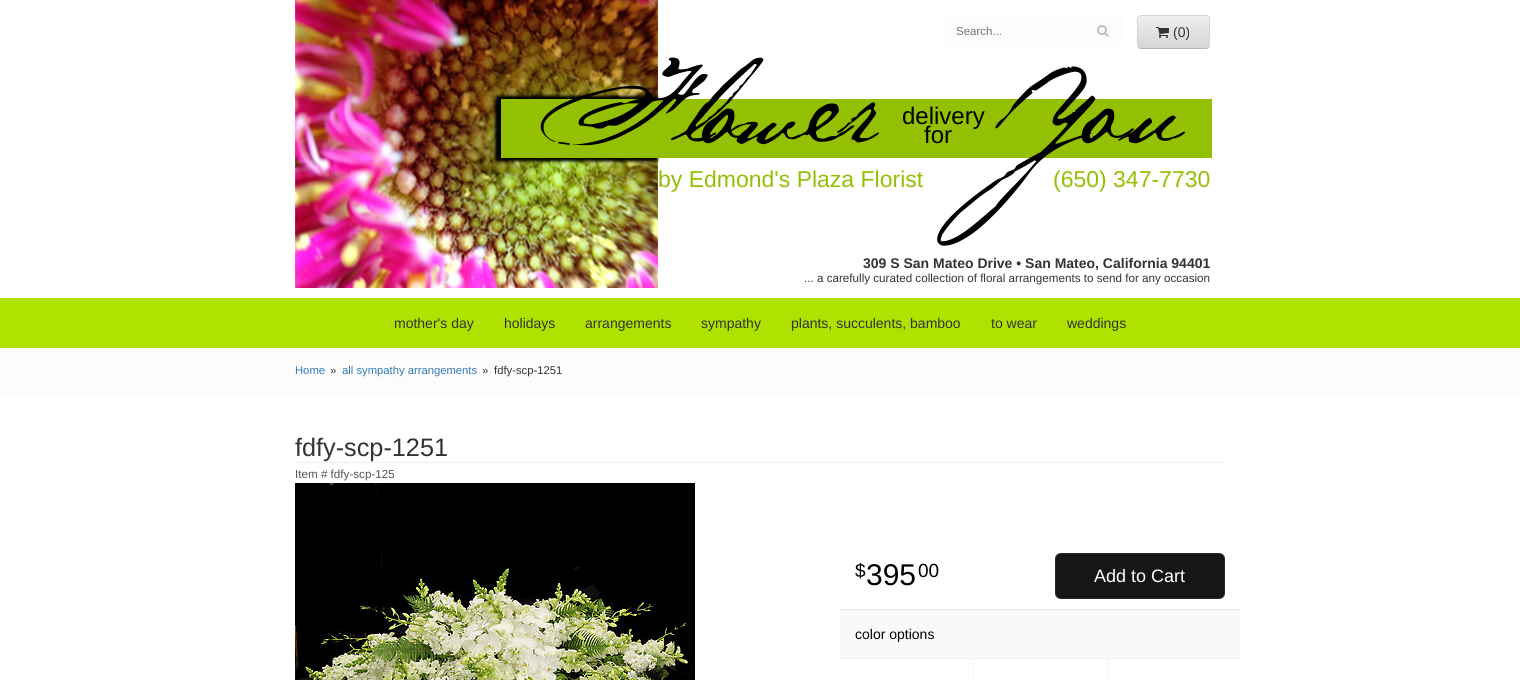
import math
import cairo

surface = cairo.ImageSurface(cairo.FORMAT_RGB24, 1520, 680)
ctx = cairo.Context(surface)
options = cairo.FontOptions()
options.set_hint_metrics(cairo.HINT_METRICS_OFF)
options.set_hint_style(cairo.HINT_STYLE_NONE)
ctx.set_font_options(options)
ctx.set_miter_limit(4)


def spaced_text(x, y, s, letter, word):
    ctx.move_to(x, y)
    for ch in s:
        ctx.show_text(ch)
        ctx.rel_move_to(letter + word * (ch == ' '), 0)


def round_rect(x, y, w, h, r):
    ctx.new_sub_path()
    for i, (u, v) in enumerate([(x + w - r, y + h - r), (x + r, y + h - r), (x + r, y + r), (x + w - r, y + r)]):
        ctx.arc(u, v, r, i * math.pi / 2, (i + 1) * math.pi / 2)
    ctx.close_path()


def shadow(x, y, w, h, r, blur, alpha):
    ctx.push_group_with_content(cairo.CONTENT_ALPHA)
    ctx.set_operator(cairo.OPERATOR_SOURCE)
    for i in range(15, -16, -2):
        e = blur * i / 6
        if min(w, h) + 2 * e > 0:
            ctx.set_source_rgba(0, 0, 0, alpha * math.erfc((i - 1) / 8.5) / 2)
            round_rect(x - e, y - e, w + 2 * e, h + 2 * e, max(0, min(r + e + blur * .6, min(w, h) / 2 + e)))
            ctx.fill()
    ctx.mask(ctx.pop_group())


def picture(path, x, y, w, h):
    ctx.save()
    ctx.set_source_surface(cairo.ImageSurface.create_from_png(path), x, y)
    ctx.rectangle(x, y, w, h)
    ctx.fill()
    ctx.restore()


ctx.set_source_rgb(1, 1, 1)
ctx.paint()
picture("img1.png", 295, 0, 363, 288)
ctx.set_source_rgb(0.988, 0.988, 0.988)
round_rect(945, 15, 177, 32, 3)
ctx.fill()
ctx.select_font_face("Liberation Sans")
ctx.set_font_size(11.5)
ctx.set_source_rgb(0.459, 0.459, 0.459)
ctx.move_to(956, 35)
ctx.show_text("Search...")
picture("img2.png", 1097, 25, 12, 12)
ctx.save()
round_rect(1137, 15, 73, 34, 4)
ctx.clip()
gradient = cairo.LinearGradient(1174, -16, 1174, 16)
gradient.add_color_stop_rgba(0, 0.933, 0.933, 0.933, 1)
gradient.add_color_stop_rgba(1, 0.839, 0.839, 0.839, 1)
ctx.set_source(gradient)
ctx.rectangle(1137, 15, 73, 1)
ctx.fill()
gradient = cairo.LinearGradient(1174, 16, 1174, 48)
gradient.add_color_stop_rgba(0, 0.933, 0.933, 0.933, 1)
gradient.add_color_stop_rgba(1, 0.839, 0.839, 0.839, 1)
ctx.set_source(gradient)
ctx.rectangle(1137, 16, 73, 32)
ctx.fill()
ctx.restore()
ctx.new_path()
ctx.move_to(1208.5, 47.5)
ctx.line_to(1206.5, 48.5)
ctx.line_to(1140.5, 48.5)
ctx.line_to(1138.5, 47.5)
ctx.set_source_rgb(0.714, 0.714, 0.714)
ctx.set_line_width(1)
ctx.stroke()
ctx.new_path()
ctx.move_to(1138.5, 47.5)
ctx.curve_to(1136.5, 45, 1137.5, 35, 1137.5, 32)
ctx.curve_to(1137.5, 14, 1134, 15.5, 1152, 15.5)
ctx.line_to(1195, 15.5)
ctx.curve_to(1213, 15.5, 1209.5, 14, 1209.5, 32)
ctx.curve_to(1209.5, 35, 1210.5, 45, 1208.5, 47.5)
ctx.set_source_rgb(0.839, 0.839, 0.839)
ctx.stroke()
picture("img3.png", 1156, 27, 13, 11)
ctx.set_font_size(14)
ctx.set_source_rgb(0.2, 0.2, 0.2)
ctx.move_to(1173, 37)
ctx.show_text("(0)")
ctx.set_source_rgb(0.58, 0.753, 0.016)
ctx.rectangle(501, 99, 711, 59)
ctx.fill()
ctx.select_font_face("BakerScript")
ctx.set_font_size(90)
ctx.set_source_rgb(0, 0, 0)
spaced_text(549, 143, "Flower", -5, 0)
ctx.select_font_face("Liberation Sans")
ctx.set_font_size(24)
ctx.move_to(902, 124)
ctx.show_text("delivery")
ctx.move_to(924, 143)
ctx.show_text("for")
ctx.set_font_size(23)
ctx.set_source_rgb(0.58, 0.753, 0.016)
ctx.move_to(1053, 187)
ctx.show_text("(650) 347-7730")
ctx.select_font_face("BakerScript")
ctx.set_font_size(90)
ctx.set_source_rgb(0, 0, 0)
spaced_text(984, 143, "You", -5, 0)
ctx.save()
ctx.set_fill_rule(cairo.FILL_RULE_EVEN_ODD)
ctx.new_path()
ctx.move_to(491, 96)
ctx.line_to(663, 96)
ctx.line_to(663, 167)
ctx.line_to(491, 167)
ctx.close_path()
ctx.move_to(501, 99)
ctx.line_to(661, 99)
ctx.line_to(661, 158)
ctx.line_to(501, 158)
ctx.close_path()
ctx.clip()
ctx.set_source_rgb(0, 0, 0)
shadow(497, 102, 160, 59, 0, 1.5, 1)
ctx.restore()
ctx.save()
ctx.set_fill_rule(cairo.FILL_RULE_EVEN_ODD)
ctx.new_path()
ctx.move_to(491, 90)
ctx.line_to(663, 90)
ctx.line_to(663, 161)
ctx.line_to(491, 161)
ctx.close_path()
ctx.move_to(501, 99)
ctx.line_to(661, 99)
ctx.line_to(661, 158)
ctx.line_to(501, 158)
ctx.close_path()
ctx.clip()
ctx.set_source_rgb(0, 0, 0)
shadow(497, 96, 160, 59, 0, 1.5, 1)
ctx.restore()
ctx.save()
ctx.set_fill_rule(cairo.FILL_RULE_EVEN_ODD)
ctx.new_path()
ctx.move_to(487, 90)
ctx.line_to(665, 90)
ctx.line_to(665, 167)
ctx.line_to(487, 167)
ctx.close_path()
ctx.move_to(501, 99)
ctx.line_to(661, 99)
ctx.line_to(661, 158)
ctx.line_to(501, 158)
ctx.close_path()
ctx.clip()
ctx.set_source_rgb(0, 0, 0)
shadow(496, 99, 160, 59, 0, 2.5, 1)
ctx.restore()
ctx.select_font_face("Liberation Sans")
ctx.set_font_size(23)
ctx.set_source_rgb(0.58, 0.753, 0.016)
ctx.move_to(658, 187)
ctx.show_text("by Edmond's Plaza Florist")
ctx.select_font_face("Liberation Sans", cairo.FONT_SLANT_NORMAL, cairo.FONT_WEIGHT_BOLD)
ctx.set_font_size(14)
ctx.set_source_rgb(0.2, 0.2, 0.2)
ctx.move_to(863, 268)
ctx.show_text("309 S San Mateo Drive • San Mateo, California 94401")
ctx.select_font_face("Liberation Sans")
ctx.set_font_size(11.65)
ctx.move_to(804, 282)
ctx.show_text("... a carefully curated collection of floral arrangements to send for any occasion")
ctx.set_source_rgb(0.686, 0.886, 0)
ctx.rectangle(0, 298, 1520, 50)
ctx.fill()
ctx.set_font_size(14)
ctx.set_source_rgb(0.2, 0.2, 0.2)
ctx.move_to(394, 328)
ctx.show_text("mother's day")
ctx.move_to(504, 328)
ctx.show_text("holidays")
ctx.move_to(585, 328)
ctx.show_text("arrangements")
ctx.move_to(701, 328)
ctx.show_text("sympathy")
ctx.move_to(791, 328)
ctx.show_text("plants, succulents, bamboo")
ctx.move_to(991, 328)
ctx.show_text("to wear")
ctx.move_to(1067, 328)
ctx.show_text("weddings")
ctx.set_source_rgb(0.988, 0.988, 0.988)
ctx.rectangle(0, 348, 1520, 45)
ctx.fill()
ctx.set_source_rgb(0.965, 0.965, 0.965)
ctx.rectangle(0, 393, 1520, 1)
ctx.fill()
ctx.set_font_size(11.25)
ctx.set_source_rgb(0.2, 0.478, 0.718)
ctx.move_to(295, 374)
ctx.show_text("Home")
ctx.set_source_rgb(0.2, 0.2, 0.2)
ctx.move_to(330, 374)
ctx.show_text("»")
ctx.set_source_rgb(0.2, 0.478, 0.718)
ctx.move_to(342, 374)
ctx.show_text("all sympathy arrangements")
ctx.set_source_rgb(0.2, 0.2, 0.2)
ctx.move_to(482, 374)
ctx.show_text("»")
ctx.move_to(494, 374)
ctx.show_text("fdfy-scp-1251")
ctx.set_source_rgb(0.933, 0.933, 0.933)
ctx.rectangle(295, 462, 930, 1)
ctx.fill()
ctx.set_font_size(25.25)
ctx.set_source_rgb(0.2, 0.2, 0.2)
ctx.move_to(295, 456)
ctx.show_text("fdfy-scp-1251")
ctx.set_font_size(11.65)
ctx.set_source_rgb(0.333, 0.333, 0.333)
ctx.move_to(295, 478)
ctx.show_text("Item # fdfy-scp-125")
picture("img4.png", 295, 483, 400, 197)
ctx.set_font_size(19)
ctx.set_source_rgb(0, 0, 0)
ctx.move_to(855, 577)
ctx.show_text("$")
ctx.set_font_size(30)
ctx.move_to(866, 585)
ctx.show_text("395")
ctx.set_font_size(19)
ctx.move_to(918, 577)
ctx.show_text("00")
ctx.set_source_rgb(0.086, 0.086, 0.086)
round_rect(1055.5, 553.5, 169, 45, 5.5)
ctx.fill_preserve()
ctx.set_source_rgb(0.161, 0.161, 0.161)
ctx.stroke()
ctx.set_font_size(18)
ctx.set_source_rgb(1, 1, 1)
ctx.move_to(1094, 582)
ctx.show_text("Add to Cart")
ctx.set_source_rgb(0.976, 0.976, 0.976)
ctx.rectangle(840, 610, 400, 48)
ctx.fill()
ctx.set_source_rgb(0.902, 0.902, 0.902)
ctx.rectangle(840, 609, 400, 1)
ctx.fill()
ctx.set_source_rgb(0.953, 0.953, 0.953)
ctx.rectangle(840, 658, 400, 1)
ctx.fill()
ctx.set_font_size(14)
ctx.set_source_rgb(0, 0, 0)
ctx.move_to(855, 639)
ctx.show_text("color options")
ctx.set_source_rgb(0.965, 0.965, 0.965)
ctx.rectangle(973, 659, 1, 21)
ctx.fill()
ctx.rectangle(1107, 659, 1, 21)
ctx.fill()
surface.write_to_png("page.png")
